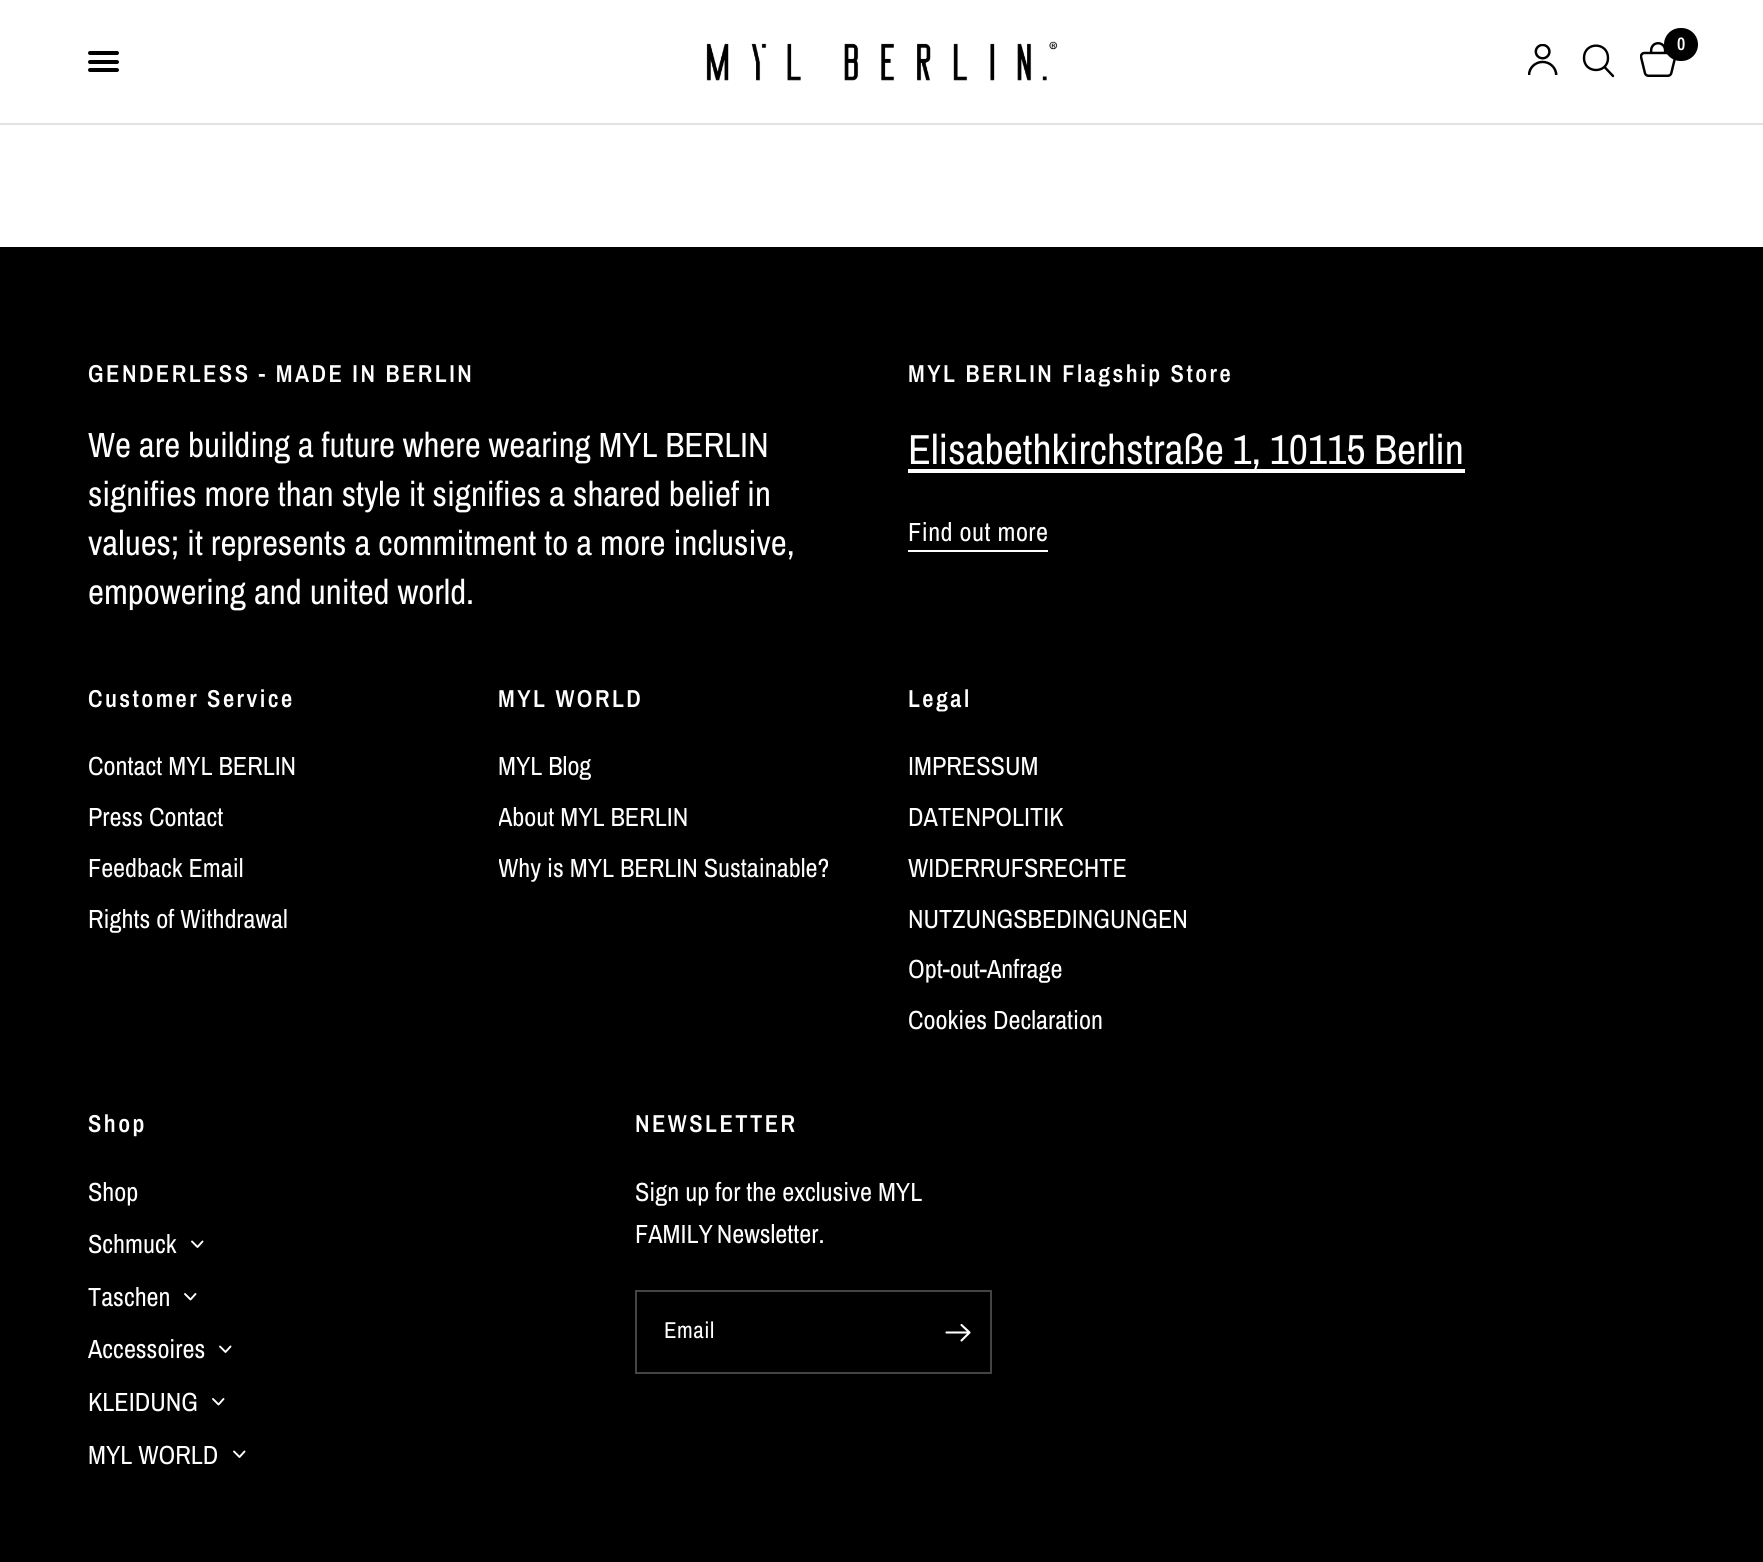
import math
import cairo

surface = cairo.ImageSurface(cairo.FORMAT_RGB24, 1763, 1562)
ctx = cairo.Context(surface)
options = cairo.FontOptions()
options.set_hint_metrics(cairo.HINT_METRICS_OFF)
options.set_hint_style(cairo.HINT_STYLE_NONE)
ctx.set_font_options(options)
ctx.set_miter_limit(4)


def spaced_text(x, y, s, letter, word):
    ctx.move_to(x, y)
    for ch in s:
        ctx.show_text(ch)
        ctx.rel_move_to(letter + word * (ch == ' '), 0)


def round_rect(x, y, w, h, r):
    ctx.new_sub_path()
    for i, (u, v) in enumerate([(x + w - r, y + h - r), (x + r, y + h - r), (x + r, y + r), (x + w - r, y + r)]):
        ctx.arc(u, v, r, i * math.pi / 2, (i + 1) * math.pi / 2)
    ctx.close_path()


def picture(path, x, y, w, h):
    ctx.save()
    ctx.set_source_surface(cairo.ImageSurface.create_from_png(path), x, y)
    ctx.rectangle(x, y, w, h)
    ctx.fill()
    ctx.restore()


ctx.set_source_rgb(1, 1, 1)
ctx.paint()
ctx.set_source_rgb(0.886, 0.886, 0.886)
ctx.rectangle(0, 123, 1763, 2)
ctx.fill()
ctx.set_source_rgb(0, 0, 0)
round_rect(88, 51, 31, 4, 2)
ctx.fill()
round_rect(88, 60, 31, 4, 2)
ctx.fill()
round_rect(88, 68, 31, 4, 2)
ctx.fill()
picture("img1.png", 706, 41, 352, 40)
picture("img2.png", 1528, 44, 30, 31)
ctx.new_path()
ctx.move_to(1605, 67.5)
ctx.line_to(1613, 76)
ctx.move_to(1608, 58)
ctx.curve_to(1608, 74, 1584, 74, 1584, 58)
ctx.curve_to(1584, 41.5, 1608, 41.5, 1608, 58)
ctx.close_path()
ctx.set_line_width(2.4)
ctx.set_line_cap(cairo.LINE_CAP_ROUND)
ctx.set_line_join(cairo.LINE_JOIN_ROUND)
ctx.stroke()
picture("img3.png", 1640, 42, 36, 35)
round_rect(1664, 28, 34, 33, 16.5)
ctx.fill()
ctx.select_font_face("Archivo Narrow SemiBold")
ctx.set_font_size(18)
ctx.set_source_rgb(1, 1, 1)
ctx.move_to(1677, 50)
ctx.show_text("0")
ctx.set_source_rgb(0, 0, 0)
ctx.rectangle(0, 247, 1763, 1315)
ctx.fill()
ctx.set_font_size(24.5)
ctx.set_source_rgb(1, 1, 1)
spaced_text(88, 382, "GENDERLESS - MADE IN BERLIN", 2.45, 0)
ctx.select_font_face("Archivo Narrow")
ctx.set_font_size(35)
spaced_text(88, 457, "We are building a future where wearing MYL BERLIN", 0, -0.25)
ctx.move_to(88, 506)
ctx.show_text("signifies more than style it signifies a shared belief in")
ctx.move_to(88, 555)
ctx.show_text("values; it represents a commitment to a more inclusive,")
ctx.move_to(88, 604)
ctx.show_text("empowering and united world.")
ctx.select_font_face("Archivo Narrow SemiBold")
ctx.set_font_size(24.5)
spaced_text(908, 382, "MYL BERLIN Flagship Store", 2.45, 0)
ctx.rectangle(908, 469, 557, 4)
ctx.fill()
ctx.select_font_face("Archivo Narrow")
ctx.set_font_size(42)
spaced_text(908, 464, "Elisabethkirchstraße 1, 10115 Berlin", 0, -1)
ctx.set_font_size(26.25)
spaced_text(908, 541, "Find out more", 0.5, 0)
ctx.rectangle(908, 550, 140, 2)
ctx.fill()
ctx.select_font_face("Archivo Narrow SemiBold")
ctx.set_font_size(24.5)
spaced_text(88, 707, "Customer Service", 2.45, 0)
ctx.select_font_face("Archivo Narrow")
ctx.set_font_size(26.25)
ctx.move_to(88, 775)
ctx.show_text("Contact MYL BERLIN")
ctx.move_to(88, 826)
ctx.show_text("Press Contact")
ctx.move_to(88, 877)
ctx.show_text("Feedback Email")
ctx.move_to(88, 928)
ctx.show_text("Rights of Withdrawal")
ctx.select_font_face("Archivo Narrow SemiBold")
ctx.set_font_size(24.5)
spaced_text(498, 707, "MYL WORLD", 2.45, 0)
ctx.select_font_face("Archivo Narrow")
ctx.set_font_size(26.25)
ctx.move_to(498, 775)
ctx.show_text("MYL Blog")
ctx.save()
ctx.rectangle(499, 746, 357, 143)
ctx.clip()
ctx.move_to(498, 826)
ctx.show_text("About MYL BERLIN")
ctx.move_to(498, 877)
ctx.show_text("Why is MYL BERLIN Sustainable?")
ctx.restore()
ctx.select_font_face("Archivo Narrow SemiBold")
ctx.set_font_size(24.5)
spaced_text(908, 707, "Legal", 2.45, 0)
ctx.select_font_face("Archivo Narrow")
ctx.set_font_size(26.25)
ctx.move_to(908, 775)
ctx.show_text("IMPRESSUM")
ctx.move_to(908, 826)
ctx.show_text("DATENPOLITIK")
ctx.move_to(908, 877)
ctx.show_text("WIDERRUFSRECHTE")
ctx.move_to(908, 928)
ctx.show_text("NUTZUNGSBEDINGUNGEN")
ctx.move_to(908, 978)
ctx.show_text("Opt-out-Anfrage")
ctx.move_to(908, 1029)
ctx.show_text("Cookies Declaration")
ctx.select_font_face("Archivo Narrow SemiBold")
ctx.set_font_size(24.5)
spaced_text(88, 1132, "Shop", 2.45, 0)
ctx.select_font_face("Archivo Narrow")
ctx.set_font_size(26.25)
ctx.move_to(88, 1201)
ctx.show_text("Shop")
ctx.move_to(88, 1253)
ctx.show_text("Schmuck")
ctx.new_path()
ctx.move_to(202.5, 1241.5)
ctx.line_to(197.5, 1247)
ctx.line_to(192, 1241.5)
ctx.move_to(195.5, 1294)
ctx.line_to(190.5, 1299.5)
ctx.line_to(185, 1294)
ctx.set_line_width(1.9)
ctx.stroke()
ctx.move_to(88, 1306)
ctx.show_text("Taschen")
ctx.move_to(88, 1358)
ctx.show_text("Accessoires")
ctx.new_path()
ctx.move_to(230.5, 1346.5)
ctx.line_to(225.5, 1352)
ctx.line_to(220, 1346.5)
ctx.move_to(223.5, 1399)
ctx.line_to(218.5, 1404.5)
ctx.line_to(213, 1399)
ctx.stroke()
ctx.move_to(88, 1411)
ctx.show_text("KLEIDUNG")
ctx.move_to(88, 1464)
ctx.show_text("MYL WORLD")
ctx.new_path()
ctx.move_to(244.5, 1451.5)
ctx.line_to(239.5, 1457)
ctx.line_to(234, 1451.5)
ctx.stroke()
ctx.select_font_face("Archivo Narrow SemiBold")
ctx.set_font_size(24.5)
spaced_text(635, 1132, "NEWSLETTER", 2.45, 0)
ctx.select_font_face("Archivo Narrow")
ctx.set_font_size(26.25)
ctx.move_to(635, 1201)
ctx.show_text("Sign up for the exclusive MYL")
spaced_text(635, 1243, "FAMILY Newsletter.", 0, -2)
ctx.rectangle(636, 1291, 355, 82)
ctx.set_source_rgb(0.267, 0.267, 0.267)
ctx.set_line_width(2)
ctx.set_line_cap(cairo.LINE_CAP_BUTT)
ctx.set_line_join(cairo.LINE_JOIN_MITER)
ctx.stroke()
ctx.set_font_size(23)
ctx.set_source_rgb(1, 1, 1)
spaced_text(664, 1338, "Email", 0.5, 0)
ctx.new_path()
ctx.move_to(946.5, 1332.5)
ctx.line_to(967.5, 1332.5)
ctx.move_to(961.5, 1325)
ctx.line_to(969.5, 1332.5)
ctx.line_to(961.5, 1340.5)
ctx.set_line_width(2.1)
ctx.set_line_cap(cairo.LINE_CAP_ROUND)
ctx.set_line_join(cairo.LINE_JOIN_ROUND)
ctx.stroke()
surface.write_to_png("page.png")
